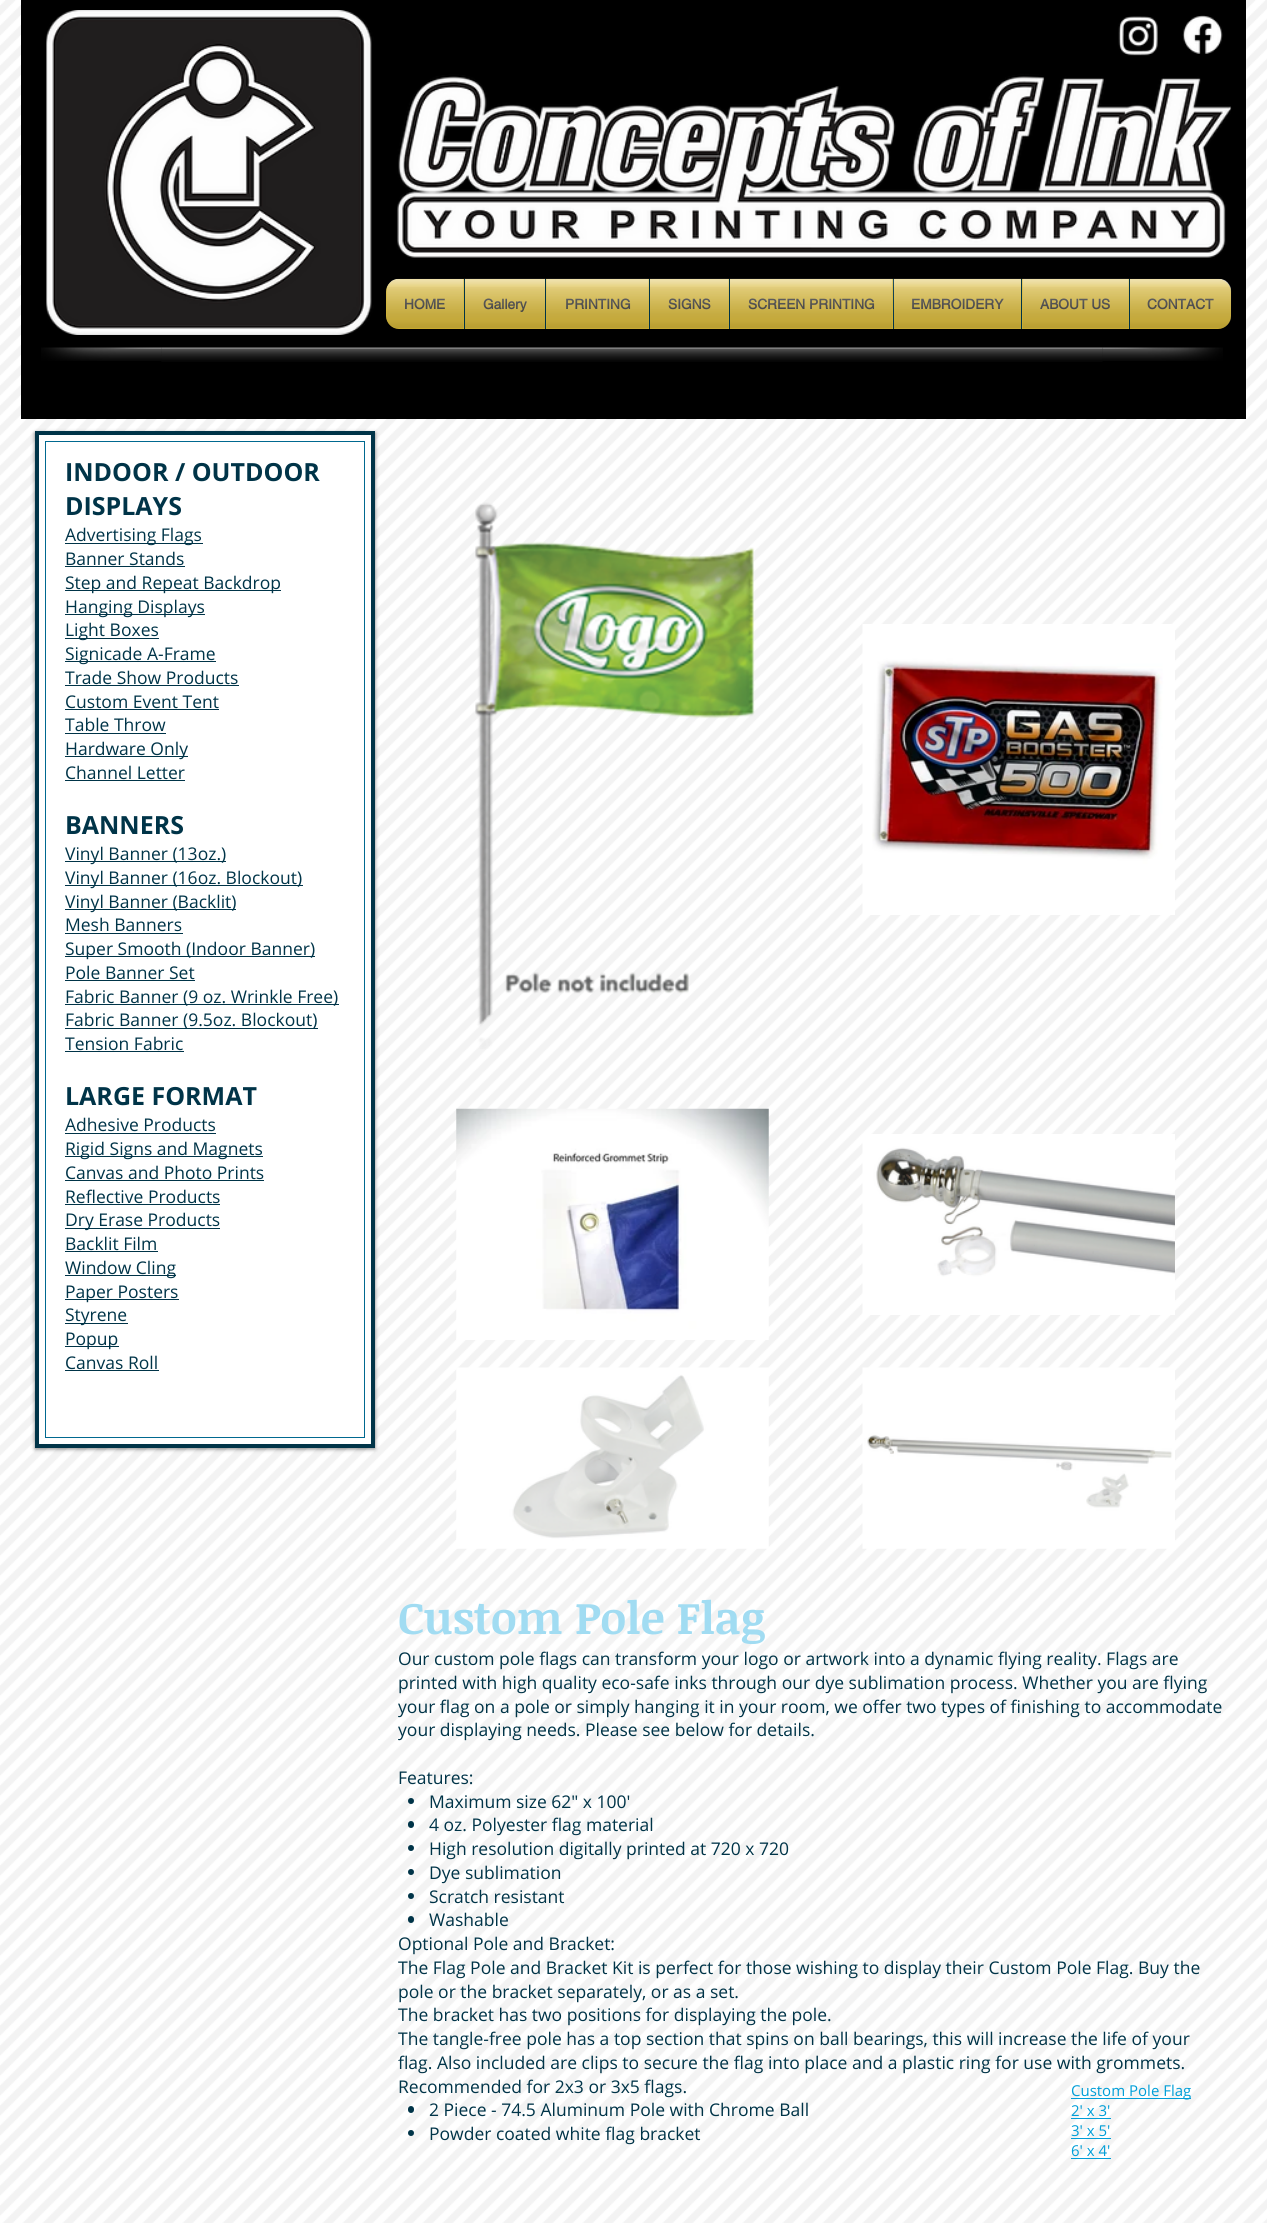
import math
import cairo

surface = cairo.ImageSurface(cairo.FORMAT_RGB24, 1267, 2223)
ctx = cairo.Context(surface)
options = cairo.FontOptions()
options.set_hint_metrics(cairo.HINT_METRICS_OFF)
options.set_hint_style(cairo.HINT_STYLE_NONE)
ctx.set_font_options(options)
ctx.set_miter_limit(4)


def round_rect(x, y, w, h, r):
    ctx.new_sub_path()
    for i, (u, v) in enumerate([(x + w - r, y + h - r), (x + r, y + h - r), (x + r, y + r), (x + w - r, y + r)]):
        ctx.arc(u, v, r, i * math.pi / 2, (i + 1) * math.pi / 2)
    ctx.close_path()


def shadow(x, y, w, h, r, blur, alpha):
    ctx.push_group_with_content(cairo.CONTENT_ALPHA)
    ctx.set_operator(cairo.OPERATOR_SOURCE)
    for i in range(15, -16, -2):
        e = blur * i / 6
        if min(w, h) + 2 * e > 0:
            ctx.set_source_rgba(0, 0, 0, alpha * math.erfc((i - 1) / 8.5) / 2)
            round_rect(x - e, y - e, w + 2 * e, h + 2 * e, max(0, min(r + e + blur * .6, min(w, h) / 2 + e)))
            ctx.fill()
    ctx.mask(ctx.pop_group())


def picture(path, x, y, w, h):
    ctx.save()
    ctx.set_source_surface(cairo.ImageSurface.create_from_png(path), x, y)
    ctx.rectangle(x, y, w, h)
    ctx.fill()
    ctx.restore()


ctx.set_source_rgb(1, 1, 1)
ctx.paint()
picture("img1.png", 0, 0, 1267, 2223)
ctx.set_source_rgb(0, 0, 0)
ctx.rectangle(21, 0, 1225, 419)
ctx.fill()
picture("img2.png", 46, 10, 1186, 325)
picture("img3.png", 1118, 16, 40, 40)
picture("img4.png", 1182, 15, 41, 39)
picture("img5.png", 386, 278, 846, 51)
picture("img6.png", 386, 289, 845, 40)
ctx.set_source_rgb(0.839, 0.71, 0.188)
ctx.new_path()
ctx.move_to(399, 279)
ctx.line_to(464, 279)
ctx.line_to(464, 329)
ctx.line_to(399, 329)
ctx.curve_to(392, 329, 386, 323, 386, 316)
ctx.line_to(386, 292)
ctx.curve_to(386, 285, 392, 279, 399, 279)
ctx.close_path()
ctx.fill()
ctx.select_font_face("helvetica", cairo.FONT_SLANT_NORMAL, cairo.FONT_WEIGHT_BOLD)
ctx.set_font_size(13.75)
ctx.set_source_rgb(0.184, 0.18, 0.18)
ctx.move_to(404, 309)
ctx.show_text("HOME")
picture("img7.png", 386, 279, 78, 49)
picture("img8.png", 386, 287, 78, 42)
ctx.set_source_rgb(0.839, 0.71, 0.188)
ctx.rectangle(465, 279, 80, 50)
ctx.fill()
ctx.set_source_rgb(0, 0.204, 0.282)
ctx.rectangle(464, 279, 1, 50)
ctx.fill()
ctx.set_source_rgb(0.184, 0.18, 0.18)
ctx.move_to(483, 309)
ctx.show_text("Gallery")
picture("img9.png", 465, 278, 80, 51)
picture("img10.png", 465, 287, 80, 42)
ctx.set_source_rgb(0.839, 0.71, 0.188)
ctx.rectangle(546, 279, 103, 50)
ctx.fill()
ctx.set_source_rgb(0, 0.204, 0.282)
ctx.rectangle(545, 279, 1, 50)
ctx.fill()
ctx.set_source_rgb(0.184, 0.18, 0.18)
ctx.move_to(565, 309)
ctx.show_text("PRINTING")
picture("img11.png", 546, 278, 103, 51)
picture("img12.png", 546, 287, 103, 42)
ctx.set_source_rgb(0.839, 0.71, 0.188)
ctx.rectangle(650, 279, 79, 50)
ctx.fill()
ctx.set_source_rgb(0, 0.204, 0.282)
ctx.rectangle(649, 279, 1, 50)
ctx.fill()
ctx.set_source_rgb(0.184, 0.18, 0.18)
ctx.move_to(668, 309)
ctx.show_text("SIGNS")
picture("img13.png", 650, 278, 79, 51)
picture("img14.png", 650, 287, 79, 42)
ctx.set_source_rgb(0.839, 0.71, 0.188)
ctx.rectangle(730, 279, 163, 50)
ctx.fill()
ctx.set_source_rgb(0, 0.204, 0.282)
ctx.rectangle(729, 279, 1, 50)
ctx.fill()
ctx.set_source_rgb(0.184, 0.18, 0.18)
ctx.move_to(748, 309)
ctx.show_text("SCREEN PRINTING")
picture("img15.png", 730, 278, 163, 51)
picture("img16.png", 730, 287, 163, 42)
ctx.set_source_rgb(0.839, 0.71, 0.188)
ctx.rectangle(894, 279, 127, 50)
ctx.fill()
ctx.set_source_rgb(0, 0.204, 0.282)
ctx.rectangle(893, 279, 1, 50)
ctx.fill()
ctx.set_source_rgb(0.184, 0.18, 0.18)
ctx.move_to(911, 309)
ctx.show_text("EMBROIDERY")
picture("img17.png", 893, 278, 128, 51)
picture("img18.png", 894, 287, 127, 42)
ctx.set_source_rgb(0.839, 0.71, 0.188)
ctx.rectangle(1022, 279, 107, 50)
ctx.fill()
ctx.set_source_rgb(0, 0.204, 0.282)
ctx.rectangle(1021, 279, 1, 50)
ctx.fill()
ctx.set_source_rgb(0.184, 0.18, 0.18)
ctx.move_to(1040, 309)
ctx.show_text("ABOUT US")
picture("img19.png", 1022, 278, 107, 51)
picture("img20.png", 1022, 287, 107, 42)
ctx.set_source_rgb(0.839, 0.71, 0.188)
ctx.new_path()
ctx.move_to(1129, 279)
ctx.line_to(1218, 279)
ctx.curve_to(1225, 279, 1231, 285, 1231, 292)
ctx.line_to(1231, 316)
ctx.curve_to(1231, 323, 1225, 329, 1218, 329)
ctx.line_to(1129, 329)
ctx.close_path()
ctx.fill()
ctx.set_source_rgb(0, 0.204, 0.282)
ctx.rectangle(1129, 279, 1, 50)
ctx.fill()
ctx.set_source_rgb(0.184, 0.18, 0.18)
ctx.move_to(1147, 309)
ctx.show_text("CONTACT")
picture("img21.png", 1130, 279, 101, 49)
picture("img22.png", 1130, 287, 101, 42)
picture("img24.png", 161, 332, 942, 30)
picture("img23.png", 41, 332, 121, 29)
picture("img25.png", 1102, 347, 121, 14)
ctx.set_source_rgb(0, 0, 0)
shadow(35, 433, 340, 1016, 0, 2, 0.5)
ctx.set_source_rgb(1, 1, 1)
ctx.rectangle(37, 433, 336, 1013)
ctx.fill_preserve()
ctx.set_source_rgb(0, 0.204, 0.282)
ctx.set_line_width(4)
ctx.stroke()
ctx.rectangle(45.5, 441.5, 319, 996)
ctx.set_source_rgb(0, 0.412, 0.565)
ctx.set_line_width(1)
ctx.stroke()
ctx.select_font_face("Open Sans", cairo.FONT_SLANT_NORMAL, cairo.FONT_WEIGHT_BOLD)
ctx.set_font_size(25)
ctx.set_source_rgb(0, 0.204, 0.282)
ctx.move_to(65, 481)
ctx.show_text("INDOOR / OUTDOOR")
ctx.move_to(65, 515)
ctx.show_text("DISPLAYS")
ctx.rectangle(65, 543, 138, 1)
ctx.fill()
ctx.select_font_face("Open Sans")
ctx.set_font_size(17.5)
ctx.move_to(65, 541)
ctx.show_text("Advertising Flags")
ctx.move_to(65, 565)
ctx.show_text("Banner Stands")
ctx.rectangle(65, 566, 120, 1)
ctx.fill()
ctx.rectangle(65, 590, 216, 1)
ctx.fill()
ctx.move_to(65, 589)
ctx.show_text("Step and Repeat Backdrop")
ctx.rectangle(65, 614, 140, 1)
ctx.fill()
ctx.move_to(65, 613)
ctx.show_text("Hanging Displays")
ctx.rectangle(65, 638, 94, 1)
ctx.fill()
ctx.move_to(65, 636)
ctx.show_text("Light Boxes")
ctx.rectangle(65, 661, 151, 1)
ctx.fill()
ctx.move_to(65, 660)
ctx.show_text("Signicade A-Frame")
ctx.move_to(65, 684)
ctx.show_text("Trade Show Products")
ctx.rectangle(65, 685, 174, 1)
ctx.fill()
ctx.move_to(65, 708)
ctx.show_text("Custom Event Tent")
ctx.rectangle(65, 709, 154, 1)
ctx.fill()
ctx.move_to(65, 731)
ctx.show_text("Table Throw")
ctx.rectangle(65, 733, 101, 1)
ctx.fill()
ctx.rectangle(65, 756, 123, 1)
ctx.fill()
ctx.move_to(65, 755)
ctx.show_text("Hardware Only")
ctx.move_to(65, 779)
ctx.show_text("Channel Letter")
ctx.rectangle(65, 780, 120, 1)
ctx.fill()
ctx.select_font_face("Open Sans", cairo.FONT_SLANT_NORMAL, cairo.FONT_WEIGHT_BOLD)
ctx.set_font_size(25)
ctx.move_to(65, 834)
ctx.show_text("BANNERS")
ctx.rectangle(65, 861, 161, 1)
ctx.fill()
ctx.select_font_face("Open Sans")
ctx.set_font_size(17.5)
ctx.move_to(65, 860)
ctx.show_text("Vinyl Banner (13oz.)")
ctx.rectangle(65, 885, 238, 1)
ctx.fill()
ctx.move_to(65, 884)
ctx.show_text("Vinyl Banner (16oz. Blockout)")
ctx.rectangle(65, 909, 171, 1)
ctx.fill()
ctx.move_to(65, 908)
ctx.show_text("Vinyl Banner (Backlit)")
ctx.move_to(65, 931)
ctx.show_text("Mesh Banners")
ctx.rectangle(65, 933, 118, 1)
ctx.fill()
ctx.rectangle(65, 956, 250, 1)
ctx.fill()
ctx.move_to(65, 955)
ctx.show_text("Super Smooth (Indoor Banner)")
ctx.move_to(65, 979)
ctx.show_text("Pole Banner Set")
ctx.rectangle(65, 980, 130, 1)
ctx.fill()
ctx.rectangle(65, 1004, 274, 1)
ctx.fill()
ctx.move_to(65, 1003)
ctx.show_text("Fabric Banner (9 oz. Wrinkle Free)")
ctx.rectangle(65, 1028, 253, 1)
ctx.fill()
ctx.move_to(65, 1026)
ctx.show_text("Fabric Banner (9.5oz. Blockout)")
ctx.move_to(65, 1050)
ctx.show_text("Tension Fabric")
ctx.rectangle(65, 1051, 119, 1)
ctx.fill()
ctx.select_font_face("Open Sans", cairo.FONT_SLANT_NORMAL, cairo.FONT_WEIGHT_BOLD)
ctx.set_font_size(25)
ctx.move_to(65, 1105)
ctx.show_text("LARGE FORMAT")
ctx.select_font_face("Open Sans")
ctx.set_font_size(17.5)
ctx.move_to(65, 1131)
ctx.show_text("Adhesive Products")
ctx.rectangle(65, 1133, 151, 1)
ctx.fill()
ctx.rectangle(65, 1156, 198, 1)
ctx.fill()
ctx.move_to(65, 1155)
ctx.show_text("Rigid Signs and Magnets")
ctx.move_to(65, 1179)
ctx.show_text("Canvas and Photo Prints")
ctx.rectangle(65, 1180, 199, 1)
ctx.fill()
ctx.move_to(65, 1203)
ctx.show_text("Reflective Products")
ctx.rectangle(65, 1204, 155, 1)
ctx.fill()
ctx.rectangle(65, 1228, 155, 1)
ctx.fill()
ctx.move_to(65, 1226)
ctx.show_text("Dry Erase Products")
ctx.move_to(65, 1250)
ctx.show_text("Backlit Film")
ctx.rectangle(65, 1251, 93, 1)
ctx.fill()
ctx.rectangle(65, 1275, 111, 1)
ctx.fill()
ctx.move_to(65, 1274)
ctx.show_text("Window Cling")
ctx.rectangle(65, 1299, 114, 1)
ctx.fill()
ctx.move_to(65, 1298)
ctx.show_text("Paper Posters")
ctx.rectangle(65, 1323, 63, 1)
ctx.fill()
ctx.move_to(65, 1321)
ctx.show_text("Styrene")
ctx.rectangle(65, 1346, 54, 1)
ctx.fill()
ctx.move_to(65, 1345)
ctx.show_text("Popup")
ctx.move_to(65, 1369)
ctx.show_text("Canvas Roll")
ctx.rectangle(65, 1370, 94, 1)
ctx.fill()
picture("img26.png", 475, 502, 280, 547)
picture("img27.png", 862, 624, 313, 291)
picture("img28.png", 456, 1108, 313, 232)
picture("img29.png", 862, 1134, 313, 181)
picture("img30.png", 456, 1367, 313, 182)
picture("img31.png", 862, 1367, 313, 182)
ctx.select_font_face("Noticia Text", cairo.FONT_SLANT_NORMAL, cairo.FONT_WEIGHT_BOLD)
ctx.set_font_size(45)
ctx.set_source_rgb(0.631, 0.863, 0.949)
ctx.move_to(398, 1634)
ctx.show_text("Custom Pole Flag")
ctx.select_font_face("Open Sans")
ctx.set_font_size(17.5)
ctx.set_source_rgb(0, 0.204, 0.282)
ctx.move_to(398, 1665)
ctx.show_text("Our custom pole flags can transform your logo or artwork into a dynamic flying reality. Flags are")
ctx.move_to(398, 1689)
ctx.show_text("printed with high quality eco-safe inks through our dye sublimation process. Whether you are flying")
ctx.move_to(398, 1713)
ctx.show_text("your flag on a pole or simply hanging it in your room, we offer two types of finishing to accommodate")
ctx.move_to(398, 1736)
ctx.show_text("your displaying needs. Please see below for details.")
ctx.move_to(398, 1784)
ctx.show_text("Features:")
ctx.new_path()
ctx.arc(411, 1801, 3, 0, 2 * math.pi)
ctx.fill()
ctx.move_to(429, 1808)
ctx.show_text("Maximum size 62\" x 100'")
round_rect(408, 1821, 6, 7, 3)
ctx.fill()
ctx.move_to(429, 1831)
ctx.show_text("4 oz. Polyester flag material")
ctx.new_path()
ctx.arc(411, 1848, 3, 0, 2 * math.pi)
ctx.fill()
ctx.move_to(429, 1855)
ctx.show_text("High resolution digitally printed at 720 x 720")
ctx.new_path()
ctx.arc(411, 1872, 3, 0, 2 * math.pi)
ctx.fill()
ctx.move_to(429, 1879)
ctx.show_text("Dye sublimation")
ctx.new_path()
ctx.arc(411, 1896, 3, 0, 2 * math.pi)
ctx.fill()
ctx.move_to(429, 1903)
ctx.show_text("Scratch resistant")
round_rect(408, 1916, 6, 7, 3)
ctx.fill()
ctx.move_to(429, 1926)
ctx.show_text("Washable")
ctx.move_to(398, 1950)
ctx.show_text("Optional Pole and Bracket:")
ctx.move_to(398, 1974)
ctx.show_text("The Flag Pole and Bracket Kit is perfect for those wishing to display their Custom Pole Flag. Buy the")
ctx.move_to(398, 1998)
ctx.show_text("pole or the bracket separately, or as a set.")
ctx.move_to(398, 2021)
ctx.show_text("The bracket has two positions for displaying the pole.")
ctx.move_to(398, 2045)
ctx.show_text("The tangle-free pole has a top section that spins on ball bearings, this will increase the life of your")
ctx.move_to(398, 2069)
ctx.show_text("flag. Also included are clips to secure the flag into place and a plastic ring for use with grommets.")
ctx.move_to(398, 2093)
ctx.show_text("Recommended for 2x3 or 3x5 flags.")
round_rect(408, 2106, 6, 7, 3)
ctx.fill()
ctx.move_to(429, 2116)
ctx.show_text("2 Piece - 74.5 Aluminum Pole with Chrome Ball")
ctx.new_path()
ctx.arc(411, 2133, 3, 0, 2 * math.pi)
ctx.fill()
ctx.move_to(429, 2140)
ctx.show_text("Powder coated white flag bracket")
ctx.set_source_rgb(0, 0.62, 0.847)
ctx.rectangle(1071, 2098, 120, 1)
ctx.fill()
ctx.set_font_size(15)
ctx.move_to(1071, 2096)
ctx.show_text("Custom Pole Flag")
ctx.move_to(1071, 2116)
ctx.show_text("2' x 3'")
ctx.rectangle(1071, 2118, 40, 1)
ctx.fill()
ctx.move_to(1071, 2136)
ctx.show_text("3' x 5'")
ctx.rectangle(1071, 2138, 40, 1)
ctx.fill()
ctx.move_to(1071, 2156)
ctx.show_text("6' x 4'")
ctx.rectangle(1071, 2158, 40, 1)
ctx.fill()
surface.write_to_png("page.png")
